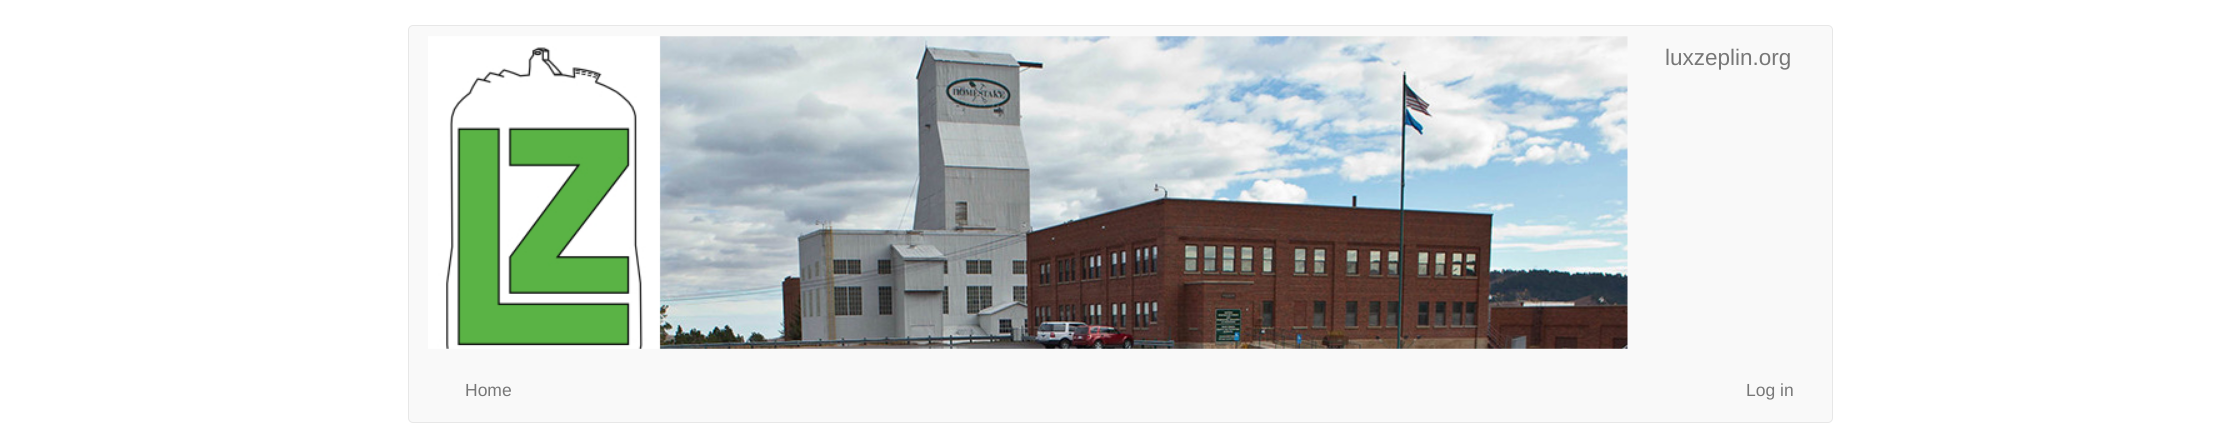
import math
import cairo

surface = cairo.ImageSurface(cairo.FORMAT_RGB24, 2239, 441)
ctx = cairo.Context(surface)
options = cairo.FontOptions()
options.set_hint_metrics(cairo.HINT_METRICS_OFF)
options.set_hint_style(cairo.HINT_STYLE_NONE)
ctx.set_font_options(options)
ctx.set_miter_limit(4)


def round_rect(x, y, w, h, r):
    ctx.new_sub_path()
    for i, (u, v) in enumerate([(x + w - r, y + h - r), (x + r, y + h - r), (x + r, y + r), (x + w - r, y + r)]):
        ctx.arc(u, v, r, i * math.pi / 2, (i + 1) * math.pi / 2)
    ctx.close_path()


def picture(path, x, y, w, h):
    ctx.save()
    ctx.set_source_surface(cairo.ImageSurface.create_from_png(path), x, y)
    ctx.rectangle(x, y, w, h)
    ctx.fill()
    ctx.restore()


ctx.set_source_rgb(1, 1, 1)
ctx.paint()
ctx.set_source_rgb(0.973, 0.973, 0.973)
round_rect(408.5, 25.5, 1424, 397, 4.5)
ctx.fill_preserve()
ctx.set_source_rgb(0.906, 0.906, 0.906)
ctx.set_line_width(1)
ctx.stroke()
picture("img1.png", 428, 36, 1200, 313)
ctx.select_font_face("Liberation Sans")
ctx.set_font_size(22.5)
ctx.set_source_rgb(0.467, 0.467, 0.467)
ctx.move_to(1665, 65)
ctx.show_text("luxzeplin.org")
ctx.set_font_size(17.5)
ctx.move_to(465, 396)
ctx.show_text("Home")
ctx.move_to(1746, 396)
ctx.show_text("Log in")
surface.write_to_png("page.png")
